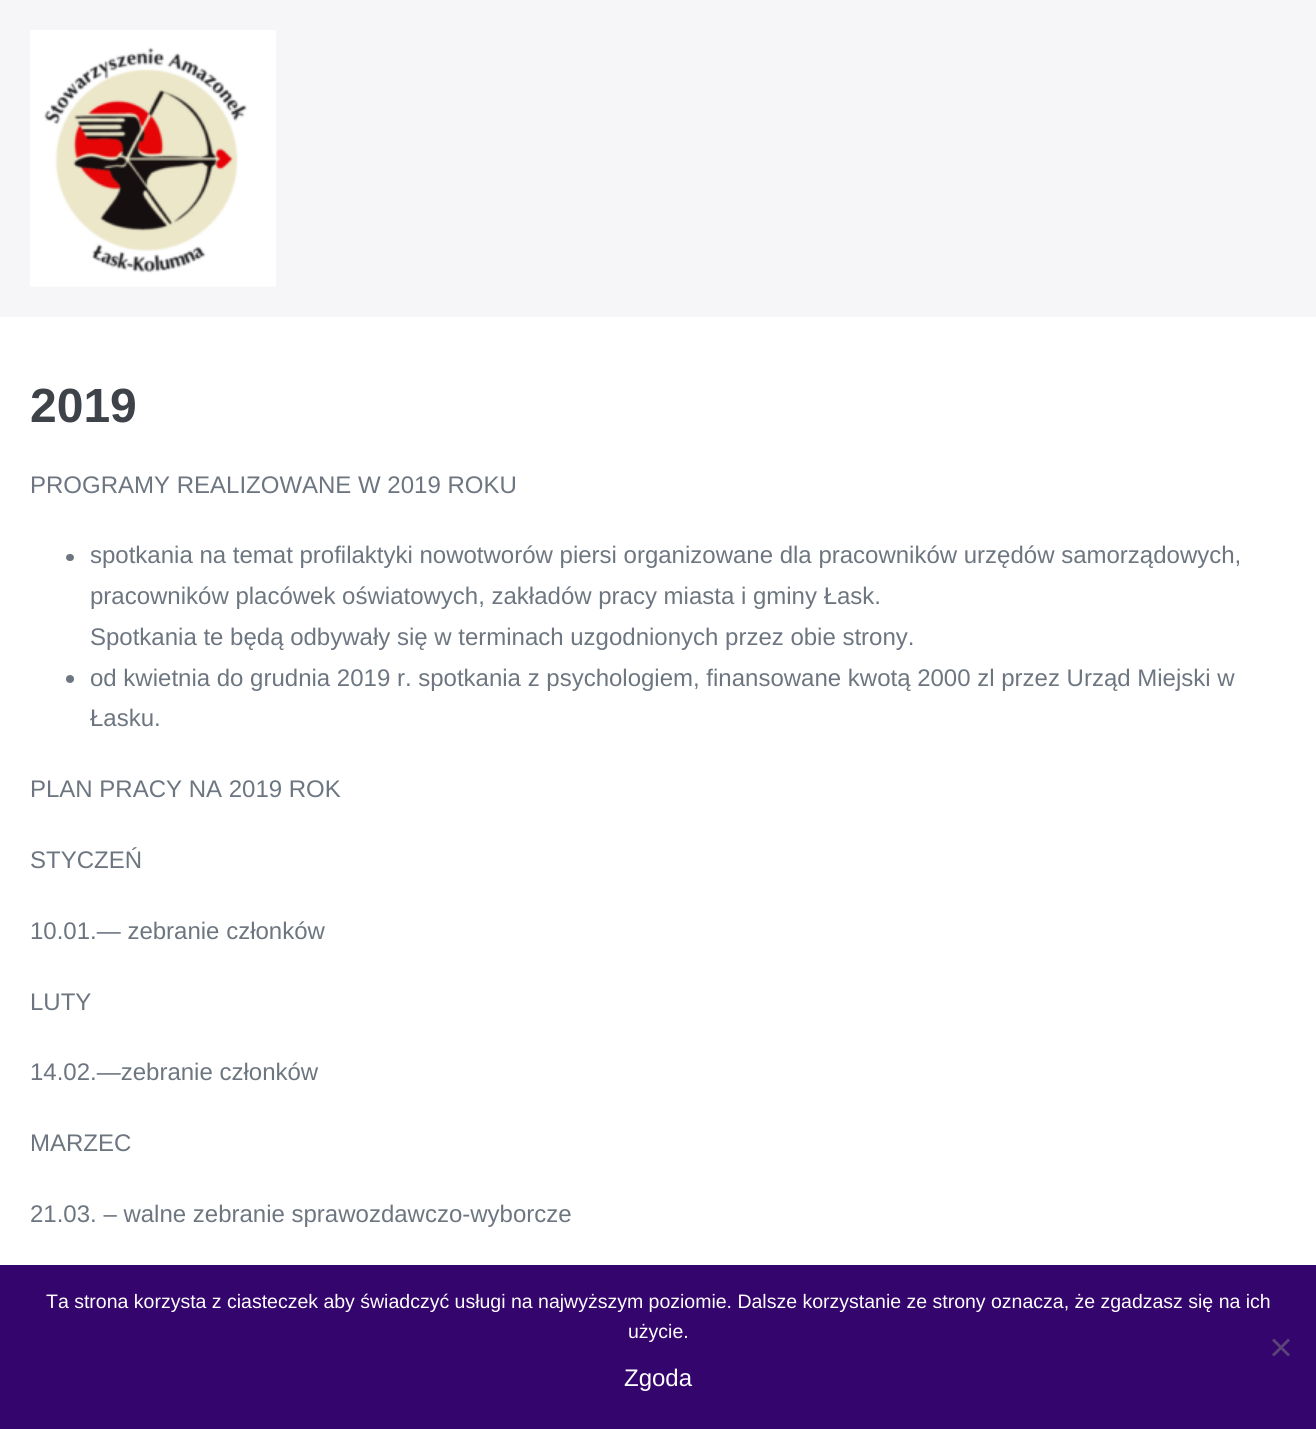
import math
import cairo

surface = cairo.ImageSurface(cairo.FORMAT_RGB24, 1316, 1429)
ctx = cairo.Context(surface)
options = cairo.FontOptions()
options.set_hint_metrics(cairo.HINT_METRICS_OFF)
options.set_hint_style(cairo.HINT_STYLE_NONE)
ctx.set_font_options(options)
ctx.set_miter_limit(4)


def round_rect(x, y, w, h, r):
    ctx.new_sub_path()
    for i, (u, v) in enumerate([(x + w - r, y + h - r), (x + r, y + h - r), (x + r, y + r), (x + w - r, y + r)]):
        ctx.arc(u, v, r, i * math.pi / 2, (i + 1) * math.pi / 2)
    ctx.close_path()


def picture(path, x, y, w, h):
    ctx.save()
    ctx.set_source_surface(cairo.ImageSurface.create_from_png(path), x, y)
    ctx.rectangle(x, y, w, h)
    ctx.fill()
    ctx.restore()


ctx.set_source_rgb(1, 1, 1)
ctx.paint()
ctx.set_source_rgb(0.961, 0.961, 0.969)
ctx.rectangle(0, 0, 1316, 317)
ctx.fill()
picture("img1.png", 30, 30, 246, 257)
ctx.select_font_face("Liberation Sans", cairo.FONT_SLANT_NORMAL, cairo.FONT_WEIGHT_BOLD)
ctx.set_font_size(48)
ctx.set_source_rgb(0.243, 0.263, 0.286)
ctx.move_to(30, 422)
ctx.show_text("2019")
ctx.select_font_face("Liberation Sans")
ctx.set_font_size(24)
ctx.set_source_rgb(0.427, 0.463, 0.502)
ctx.move_to(30, 493)
ctx.show_text("PROGRAMY REALIZOWANE W 2019 ROKU")
round_rect(66, 554, 8, 7, 3.5)
ctx.fill()
ctx.move_to(90, 563)
ctx.show_text("spotkania na temat profilaktyki nowotworów piersi organizowane dla pracowników urzędów samorządowych,")
ctx.move_to(90, 604)
ctx.show_text("pracowników placówek oświatowych, zakładów pracy miasta i gminy Łask.")
ctx.move_to(90, 645)
ctx.show_text("Spotkania te będą odbywały się w terminach uzgodnionych przez obie strony.")
ctx.new_path()
ctx.arc(70, 679, 4, 0, 2 * math.pi)
ctx.fill()
ctx.move_to(90, 686)
ctx.show_text("od kwietnia do grudnia 2019 r. spotkania z psychologiem, finansowane kwotą 2000 zl przez Urząd Miejski w")
ctx.move_to(90, 726)
ctx.show_text("Łasku.")
ctx.move_to(30, 797)
ctx.show_text("PLAN PRACY NA 2019 ROK")
ctx.move_to(30, 868)
ctx.show_text("STYCZEŃ")
ctx.move_to(30, 939)
ctx.show_text("10.01.— zebranie członków")
ctx.move_to(30, 1010)
ctx.show_text("LUTY")
ctx.move_to(30, 1080)
ctx.show_text("14.02.—zebranie członków")
ctx.move_to(30, 1151)
ctx.show_text("MARZEC")
ctx.move_to(30, 1222)
ctx.show_text("21.03. – walne zebranie sprawozdawczo-wyborcze")
ctx.set_source_rgb(0.204, 0.02, 0.427)
ctx.rectangle(0, 1265, 1316, 164)
ctx.fill()
ctx.set_font_size(19.5)
ctx.set_source_rgb(1, 1, 1)
ctx.move_to(46, 1308)
ctx.show_text("Ta strona korzysta z ciasteczek aby świadczyć usługi na najwyższym poziomie. Dalsze korzystanie ze strony oznacza, że zgadzasz się na ich")
ctx.move_to(628, 1338)
ctx.show_text("użycie.")
ctx.set_source_rgb(0.353, 0.263, 0.467)
ctx.new_path()
ctx.move_to(1288, 1338.5)
ctx.line_to(1290, 1340.5)
ctx.line_to(1274, 1356.5)
ctx.line_to(1272, 1354.5)
ctx.close_path()
ctx.fill()
ctx.new_path()
ctx.move_to(1272, 1340.5)
ctx.line_to(1274, 1338.5)
ctx.line_to(1290, 1354.5)
ctx.line_to(1288, 1356.5)
ctx.close_path()
ctx.fill()
ctx.set_font_size(24)
ctx.set_source_rgb(1, 1, 1)
ctx.move_to(624, 1386)
ctx.show_text("Zgoda")
surface.write_to_png("page.png")
